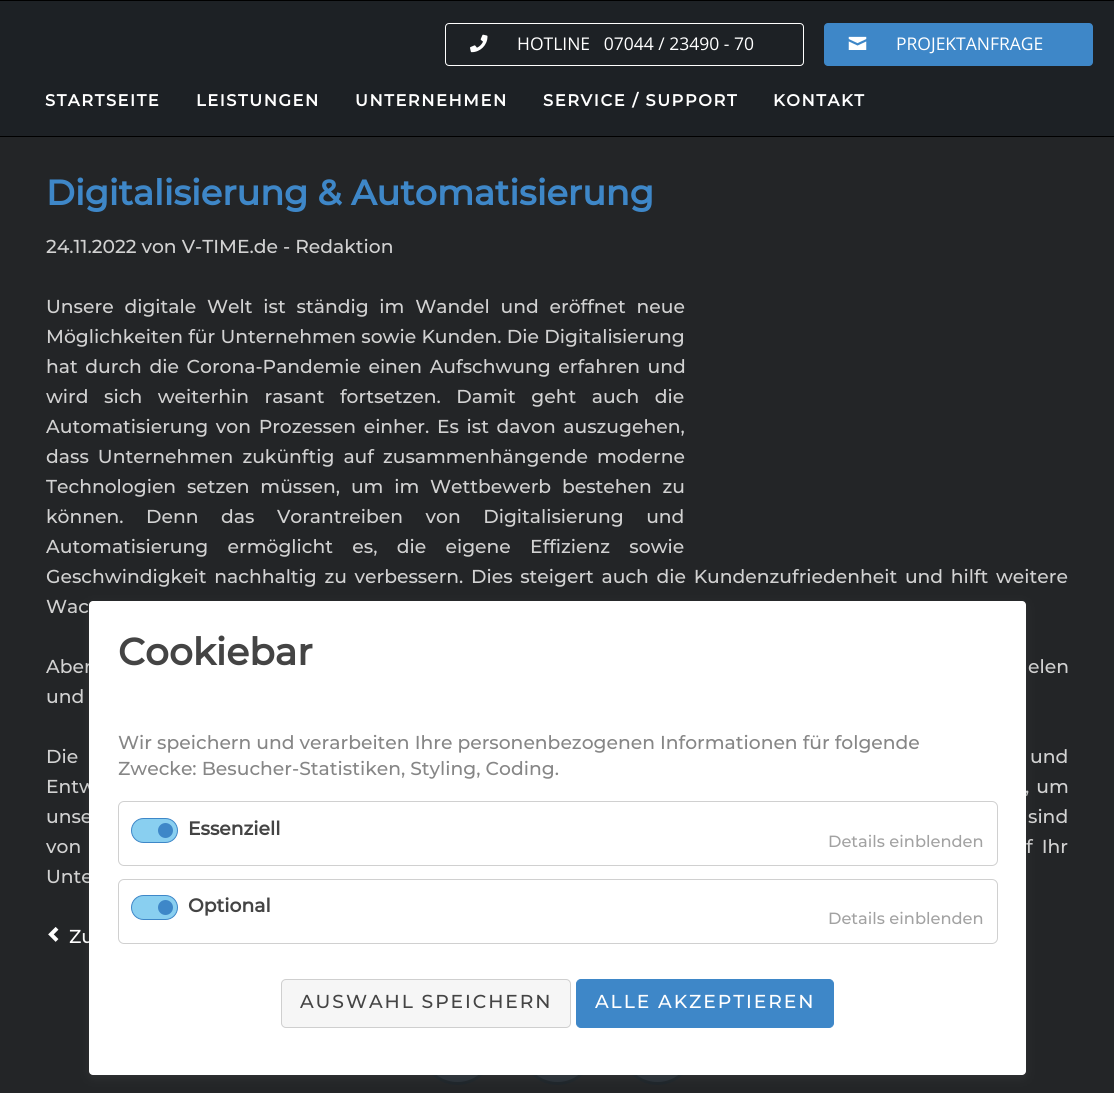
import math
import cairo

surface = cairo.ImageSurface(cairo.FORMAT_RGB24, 1114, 1093)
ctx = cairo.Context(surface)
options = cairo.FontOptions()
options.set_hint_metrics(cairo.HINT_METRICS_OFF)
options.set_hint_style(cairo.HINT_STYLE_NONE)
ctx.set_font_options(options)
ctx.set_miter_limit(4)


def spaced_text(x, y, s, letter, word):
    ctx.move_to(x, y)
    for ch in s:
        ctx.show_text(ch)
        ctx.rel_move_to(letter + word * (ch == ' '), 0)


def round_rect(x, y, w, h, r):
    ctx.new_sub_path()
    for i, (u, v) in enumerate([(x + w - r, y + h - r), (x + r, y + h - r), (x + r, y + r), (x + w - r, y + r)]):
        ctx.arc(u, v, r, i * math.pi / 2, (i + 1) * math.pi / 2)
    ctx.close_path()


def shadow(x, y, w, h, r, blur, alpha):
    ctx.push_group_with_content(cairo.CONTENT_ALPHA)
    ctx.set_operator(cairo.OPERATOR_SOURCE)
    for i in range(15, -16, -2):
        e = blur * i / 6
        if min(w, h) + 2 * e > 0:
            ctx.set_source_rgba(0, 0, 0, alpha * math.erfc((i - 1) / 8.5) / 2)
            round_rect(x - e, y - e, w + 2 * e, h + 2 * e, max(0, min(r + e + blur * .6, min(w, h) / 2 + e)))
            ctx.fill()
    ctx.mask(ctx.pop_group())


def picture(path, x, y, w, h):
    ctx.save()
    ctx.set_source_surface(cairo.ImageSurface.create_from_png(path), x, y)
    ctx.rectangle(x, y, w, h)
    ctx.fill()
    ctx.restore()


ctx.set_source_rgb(0.137, 0.145, 0.153)
ctx.paint()
ctx.set_source_rgb(0.114, 0.129, 0.145)
ctx.rectangle(0, 1, 1114, 135)
ctx.fill()
ctx.set_source_rgb(0, 0, 0)
ctx.rectangle(0, 0, 1114, 1)
ctx.fill()
ctx.rectangle(0, 136, 1114, 1)
ctx.fill()
round_rect(445.5, 23.5, 358, 42, 3.5)
ctx.set_source_rgb(1, 1, 1)
ctx.set_line_width(1)
ctx.stroke()
picture("img1.png", 470, 34, 18, 19)
ctx.select_font_face("Open Sans")
ctx.set_font_size(17.5)
ctx.move_to(517, 50)
ctx.show_text("HOTLINE   07044 / 23490 - 70")
ctx.set_source_rgb(0.243, 0.529, 0.784)
round_rect(824, 23, 269, 43, 4)
ctx.fill()
picture("img2.png", 848, 36, 19, 14)
ctx.set_source_rgb(1, 1, 1)
ctx.move_to(896, 50)
ctx.show_text("PROJEKTANFRAGE")
ctx.select_font_face("Montserrat", cairo.FONT_SLANT_NORMAL, cairo.FONT_WEIGHT_BOLD)
ctx.set_font_size(16.25)
spaced_text(45, 106, "STARTSEITE", 1.6, 0)
spaced_text(196, 106, "LEISTUNGEN", 1.6, 0)
spaced_text(355, 106, "UNTERNEHMEN", 1.6, 0)
spaced_text(543, 106, "SERVICE / SUPPORT", 1.6, 0)
spaced_text(773, 106, "KONTAKT", 1.6, 0)
ctx.set_font_size(35)
ctx.set_source_rgb(0.243, 0.529, 0.784)
ctx.move_to(46, 205)
ctx.show_text("Digitalisierung & Automatisierung")
ctx.select_font_face("Montserrat Medium")
ctx.set_font_size(18.75)
ctx.set_source_rgb(0.824, 0.824, 0.824)
ctx.move_to(46, 253)
ctx.show_text("24.11.2022 von V-TIME.de - Redaktion")
spaced_text(46, 313, "Unsere digitale Welt ist ständig im Wandel und eröffnet neue", 0, 5.75)
spaced_text(46, 343, "Möglichkeiten für Unternehmen sowie Kunden. Die Digitalisierung", 0, 0.25)
spaced_text(46, 373, "hat durch die Corona-Pandemie einen Aufschwung erfahren und", 0, 2.5)
spaced_text(46, 403, "wird sich weiterhin rasant fortsetzen. Damit geht auch die", 0, 10.5)
spaced_text(46, 433, "Automatisierung von Prozessen einher. Es ist davon auszugehen,", 0, 2.6)
spaced_text(46, 463, "dass Unternehmen zukünftig auf zusammenhängende moderne", 0, 4)
spaced_text(46, 493, "Technologien setzen müssen, um im Wettbewerb bestehen zu", 0, 5.75)
spaced_text(46, 523, "können. Denn das Vorantreiben von Digitalisierung und", 0, 17.5)
spaced_text(46, 553, "Automatisierung ermöglicht es, die eigene Effizienz sowie", 0, 14.25)
spaced_text(46, 583, "Geschwindigkeit nachhaltig zu verbessern. Dies steigert auch die Kundenzufriedenheit und hilft weitere", 0, 2.6)
ctx.move_to(46, 613)
ctx.show_text("Wac")
spaced_text(46, 673, "Aber", 0, 3)
spaced_text(1028, 673, "elen", 0, 3)
ctx.move_to(46, 703)
ctx.show_text("und")
spaced_text(46, 763, "Die", 0, 4)
spaced_text(1030, 763, "und", 0, 4)
spaced_text(46, 793, "Entw", 0, 2)
spaced_text(1025, 793, ", um", 0, 2)
spaced_text(46, 823, "unse", 0, 1)
spaced_text(1028, 823, "sind", 0, 1)
spaced_text(46, 853, "von", 0, 4)
spaced_text(1026, 853, "f Ihr", 0, 4)
ctx.move_to(46, 883)
ctx.show_text("Unte")
picture("img3.png", 48, 927, 11, 15)
ctx.set_source_rgb(1, 1, 1)
ctx.move_to(69, 943)
ctx.show_text("Zu")
ctx.set_source_rgb(0.161, 0.188, 0.216)
ctx.new_path()
ctx.arc(457.5, 1047.5, 36, 0, 2 * math.pi)
ctx.fill_preserve()
ctx.set_source_rgb(0.114, 0.141, 0.161)
ctx.set_line_width(3)
ctx.stroke()
ctx.set_source_rgb(0.161, 0.188, 0.216)
ctx.arc(557.5, 1047.5, 36, 0, 2 * math.pi)
ctx.fill_preserve()
ctx.set_source_rgb(0.114, 0.141, 0.161)
ctx.stroke()
ctx.set_source_rgb(0.161, 0.188, 0.216)
ctx.arc(657.5, 1047.5, 36, 0, 2 * math.pi)
ctx.fill_preserve()
ctx.set_source_rgb(0.114, 0.141, 0.161)
ctx.stroke()
ctx.set_source_rgb(0.388, 0.388, 0.388)
shadow(89, 604, 937, 474, 4, 5, 0.2)
ctx.set_source_rgb(1, 1, 1)
round_rect(89, 601, 937, 474, 4)
ctx.fill()
ctx.select_font_face("Montserrat", cairo.FONT_SLANT_NORMAL, cairo.FONT_WEIGHT_BOLD)
ctx.set_font_size(37.5)
ctx.set_source_rgb(0.267, 0.267, 0.267)
ctx.move_to(118, 665)
ctx.show_text("Cookiebar")
ctx.select_font_face("Montserrat Medium")
ctx.set_font_size(18.75)
ctx.set_source_rgb(0.525, 0.525, 0.525)
ctx.move_to(118, 749)
ctx.show_text("Wir speichern und verarbeiten Ihre personenbezogenen Informationen für folgende")
ctx.move_to(118, 775)
ctx.show_text("Zwecke: Besucher-Statistiken, Styling, Coding.")
round_rect(118.5, 801.5, 879, 64, 5.5)
ctx.set_source_rgb(0.816, 0.816, 0.816)
ctx.set_line_width(1)
ctx.stroke()
ctx.set_source_rgb(0.537, 0.812, 0.941)
round_rect(131.5, 818.5, 46, 24, 12)
ctx.fill_preserve()
ctx.set_source_rgb(0.243, 0.529, 0.784)
ctx.stroke()
ctx.select_font_face("Montserrat", cairo.FONT_SLANT_NORMAL, cairo.FONT_WEIGHT_BOLD)
ctx.set_source_rgb(0.267, 0.267, 0.267)
ctx.move_to(188, 835)
ctx.show_text("Essenziell")
ctx.set_source_rgb(0.243, 0.529, 0.784)
ctx.new_path()
ctx.arc(165.5, 830.5, 7.5, 0, 2 * math.pi)
ctx.fill()
ctx.select_font_face("Montserrat Medium")
ctx.set_font_size(16.25)
ctx.set_source_rgb(0.635, 0.635, 0.635)
ctx.move_to(828, 847)
ctx.show_text("Details einblenden")
round_rect(118.5, 879.5, 879, 64, 5.5)
ctx.set_source_rgb(0.816, 0.816, 0.816)
ctx.stroke()
ctx.set_source_rgb(0.537, 0.812, 0.941)
round_rect(131.5, 895.5, 46, 24, 12)
ctx.fill_preserve()
ctx.set_source_rgb(0.243, 0.529, 0.784)
ctx.stroke()
ctx.select_font_face("Montserrat", cairo.FONT_SLANT_NORMAL, cairo.FONT_WEIGHT_BOLD)
ctx.set_font_size(18.75)
ctx.set_source_rgb(0.267, 0.267, 0.267)
ctx.move_to(188, 912)
ctx.show_text("Optional")
ctx.set_source_rgb(0.243, 0.529, 0.784)
ctx.new_path()
ctx.arc(165.5, 907.5, 7.5, 0, 2 * math.pi)
ctx.fill()
ctx.select_font_face("Montserrat Medium")
ctx.set_font_size(16.25)
ctx.set_source_rgb(0.635, 0.635, 0.635)
ctx.move_to(828, 924)
ctx.show_text("Details einblenden")
ctx.set_source_rgb(0.961, 0.961, 0.961)
round_rect(281.5, 979.5, 289, 48, 4.5)
ctx.fill_preserve()
ctx.set_source_rgb(0.812, 0.812, 0.812)
ctx.stroke()
ctx.set_font_size(18.75)
ctx.set_source_rgb(0.267, 0.267, 0.267)
spaced_text(300, 1008, "AUSWAHL SPEICHERN", 1.9, 0)
ctx.set_source_rgb(0.243, 0.529, 0.784)
round_rect(576.5, 979.5, 257, 48, 4.5)
ctx.fill_preserve()
ctx.stroke()
ctx.set_source_rgb(1, 1, 1)
spaced_text(595, 1008, "ALLE AKZEPTIEREN", 1.9, 0)
surface.write_to_png("page.png")
